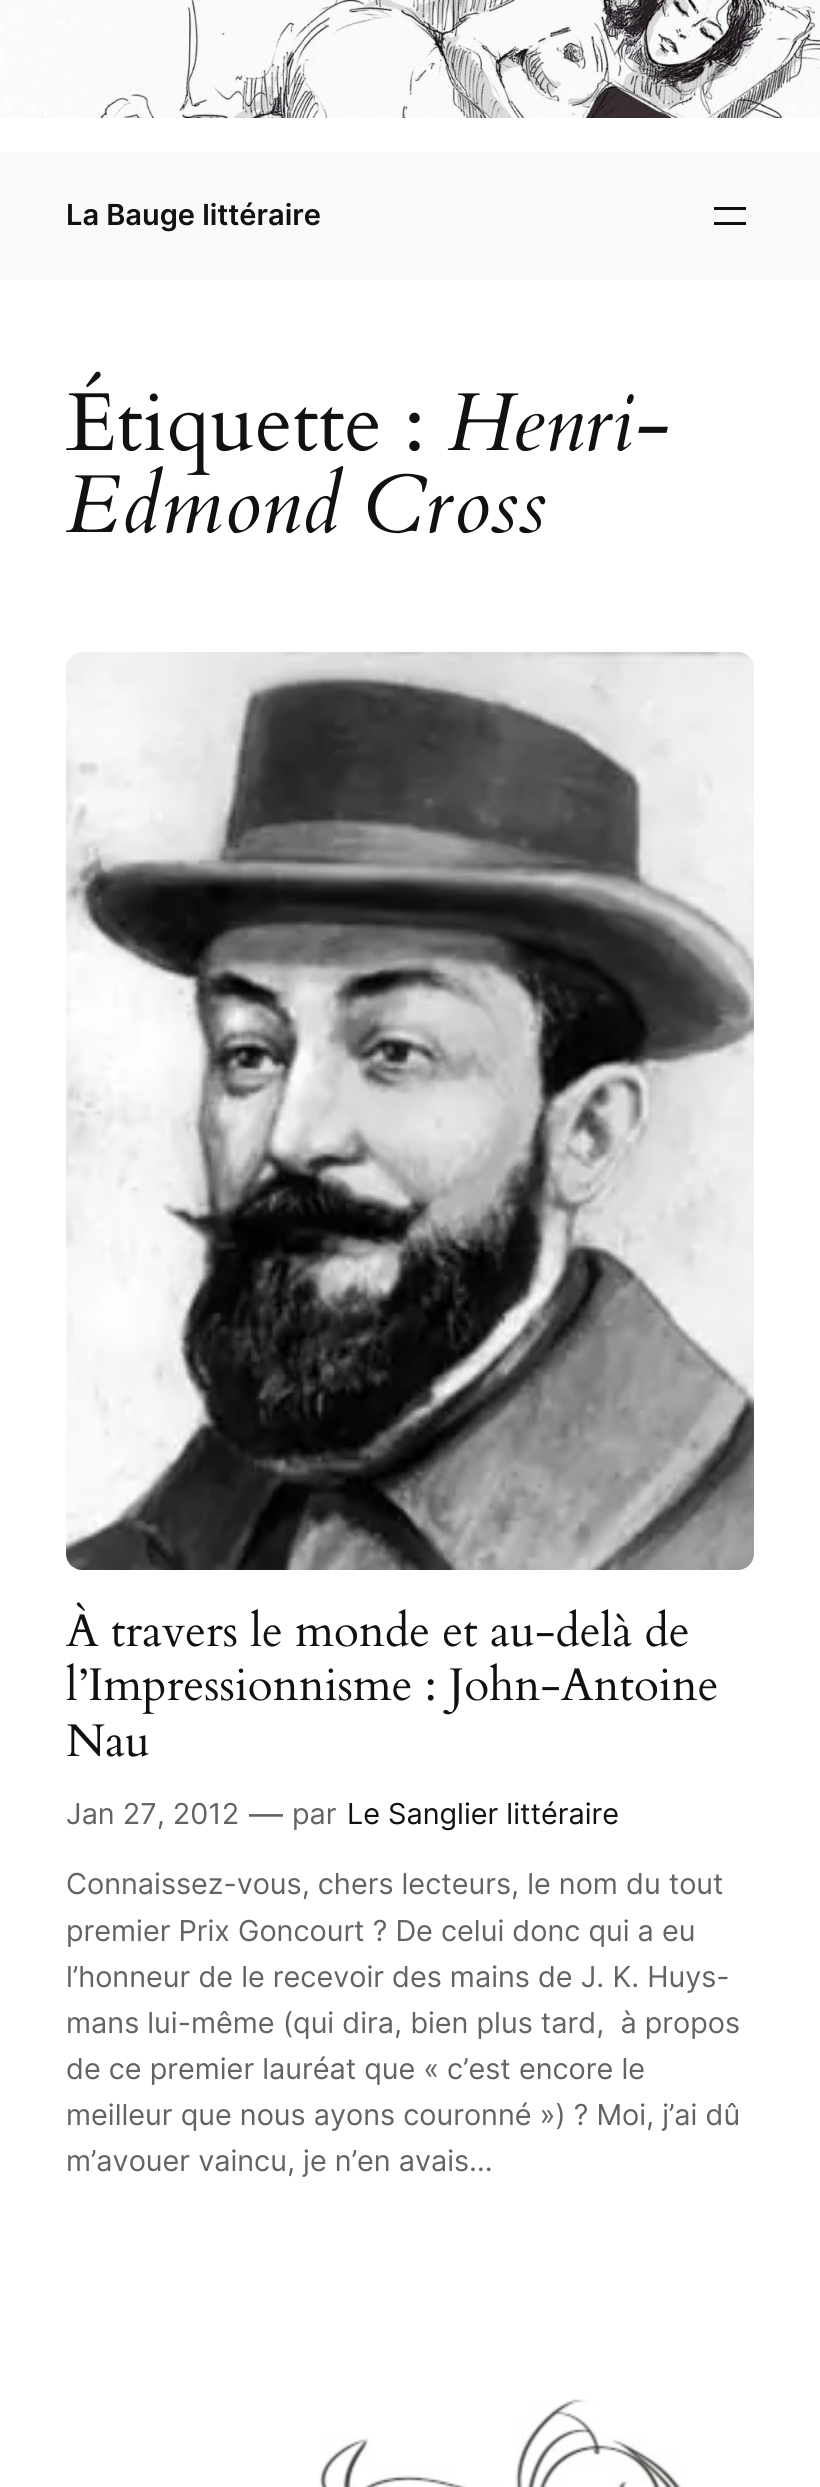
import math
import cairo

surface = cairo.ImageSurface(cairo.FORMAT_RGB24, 820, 2487)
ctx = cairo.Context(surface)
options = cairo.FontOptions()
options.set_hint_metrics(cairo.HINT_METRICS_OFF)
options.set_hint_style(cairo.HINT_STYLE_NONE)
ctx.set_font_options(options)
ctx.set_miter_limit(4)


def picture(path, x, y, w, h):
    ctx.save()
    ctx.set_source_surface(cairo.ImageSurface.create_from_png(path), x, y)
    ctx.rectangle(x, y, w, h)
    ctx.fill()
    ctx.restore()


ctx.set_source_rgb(1, 1, 1)
ctx.paint()
picture("img1.png", 0, 0, 820, 118)
ctx.set_source_rgb(0.976, 0.976, 0.976)
ctx.rectangle(0, 152, 820, 128)
ctx.fill()
ctx.select_font_face("Inter SemiBold")
ctx.set_font_size(29)
ctx.set_source_rgb(0.067, 0.067, 0.067)
ctx.move_to(66, 225)
ctx.show_text("La Bauge littéraire")
ctx.rectangle(714, 207, 32, 3)
ctx.fill()
ctx.rectangle(714, 222, 32, 3)
ctx.fill()
picture("img2.png", 66, 371, 354, 104)
ctx.select_font_face("Cardo", cairo.FONT_SLANT_ITALIC)
ctx.set_font_size(82.25)
ctx.move_to(447, 450)
ctx.show_text("Henri-")
ctx.move_to(66, 532)
ctx.show_text("Edmond Cross")
picture("img3.png", 66, 652, 688, 918)
picture("img4.png", 66, 1602, 622, 45)
picture("img5.png", 66, 1663, 651, 52)
picture("img6.png", 67, 1724, 82, 33)
ctx.select_font_face("Inter")
ctx.set_font_size(28.8)
ctx.set_source_rgb(0.388, 0.388, 0.388)
ctx.move_to(66, 1824)
ctx.show_text("Jan 27, 2012")
ctx.set_font_size(34)
ctx.move_to(249, 1826)
ctx.show_text("—")
ctx.set_font_size(28.8)
ctx.move_to(292, 1824)
ctx.show_text("par")
ctx.set_source_rgb(0.067, 0.067, 0.067)
ctx.move_to(347, 1824)
ctx.show_text("Le Sanglier littéraire")
ctx.set_source_rgb(0.388, 0.388, 0.388)
ctx.move_to(66, 1894)
ctx.show_text("Connaissez-vous, chers lecteurs, le nom du tout")
ctx.move_to(66, 1941)
ctx.show_text("premier Prix Goncourt ? De celui donc qui a eu")
ctx.move_to(66, 1987)
ctx.show_text("l’honneur de le recevoir des mains de J. K. Huys-")
ctx.move_to(66, 2033)
ctx.show_text("mans lui-même (qui dira, bien plus tard,  à propos")
ctx.move_to(66, 2079)
ctx.show_text("de ce premier lauréat que « c’est encore le")
ctx.move_to(66, 2125)
ctx.show_text("meilleur que nous ayons couronné ») ? Moi, j’ai dû")
ctx.move_to(66, 2171)
ctx.show_text("m’avouer vaincu, je n’en avais…")
picture("img7.png", 319, 2399, 367, 88)
surface.write_to_png("page.png")
